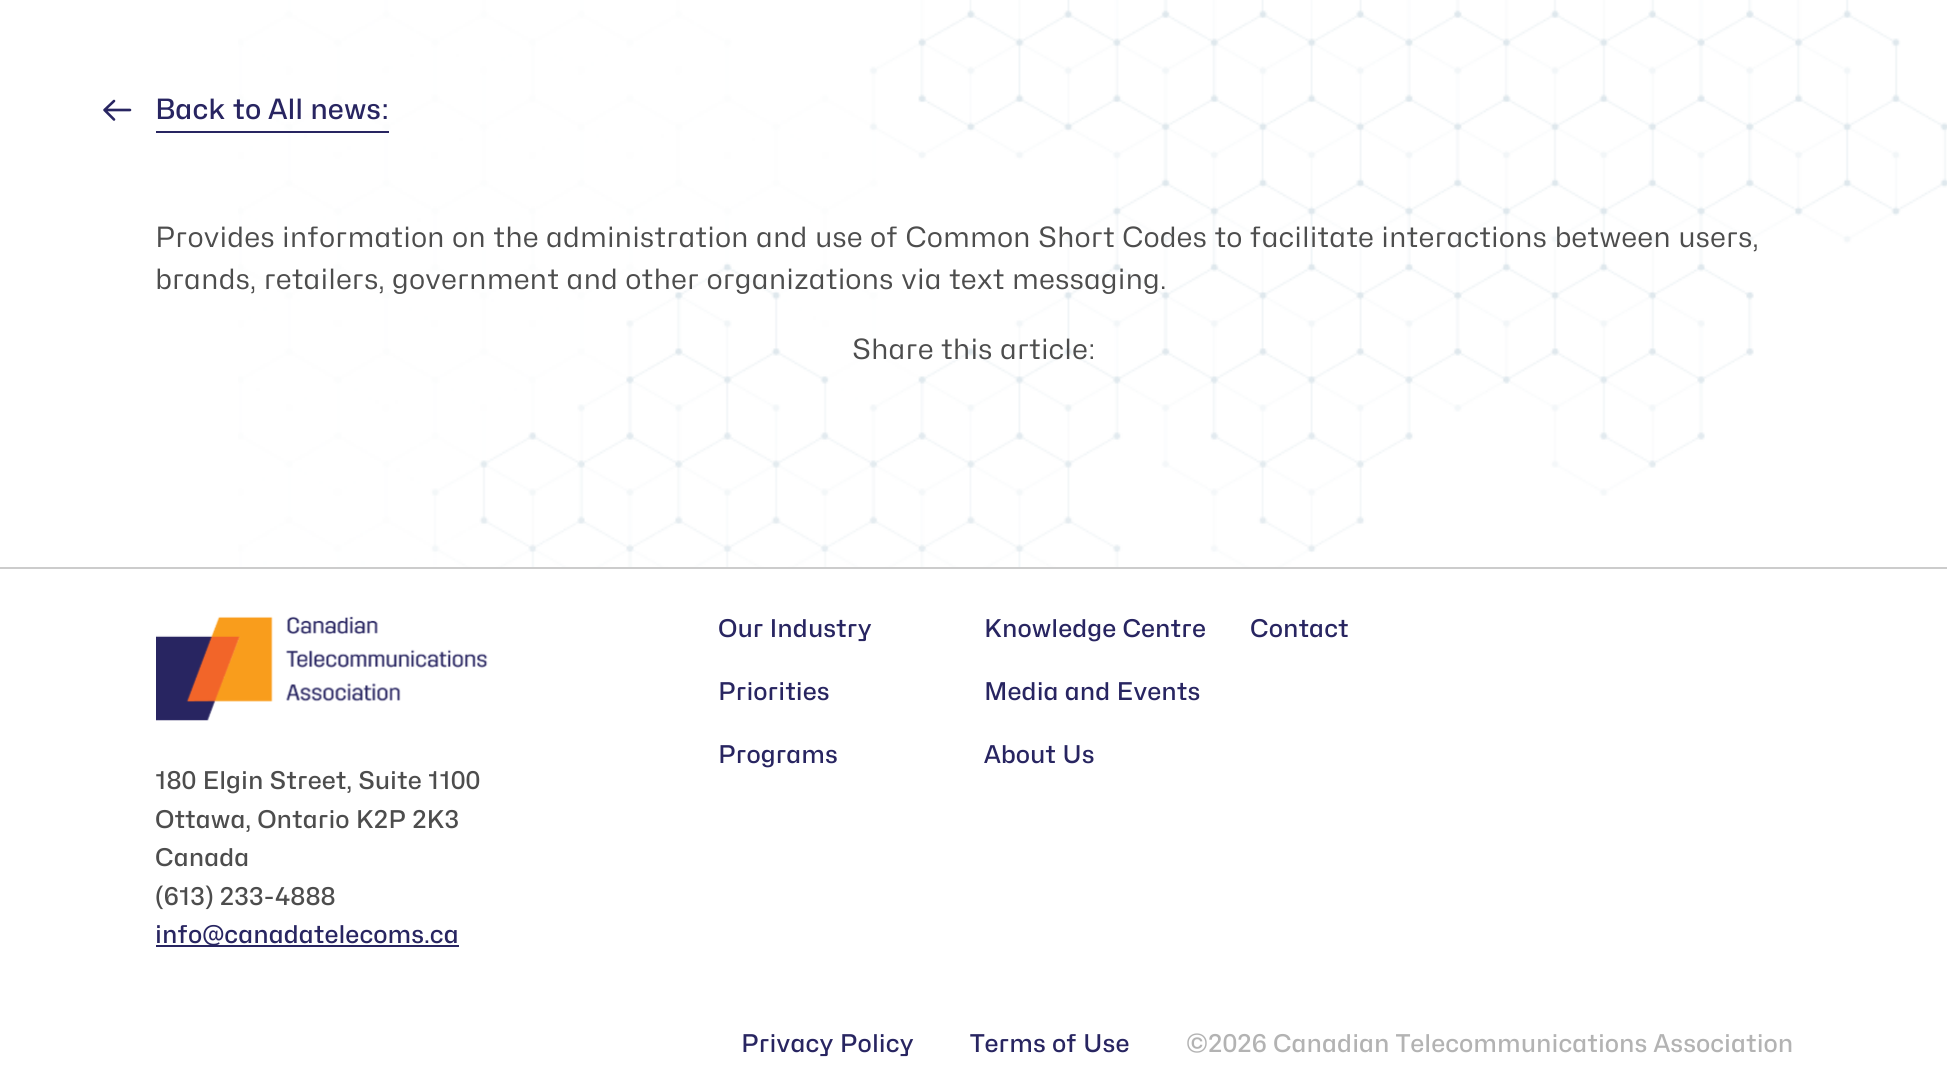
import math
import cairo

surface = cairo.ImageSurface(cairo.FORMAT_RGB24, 1947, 1090)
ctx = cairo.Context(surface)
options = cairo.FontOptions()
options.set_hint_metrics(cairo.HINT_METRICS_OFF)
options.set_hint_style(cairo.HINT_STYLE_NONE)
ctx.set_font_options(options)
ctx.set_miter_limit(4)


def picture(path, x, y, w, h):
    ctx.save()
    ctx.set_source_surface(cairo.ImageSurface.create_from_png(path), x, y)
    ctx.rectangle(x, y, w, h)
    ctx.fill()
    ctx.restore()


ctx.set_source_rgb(1, 1, 1)
ctx.paint()
picture("img1.png", 238, 0, 1709, 567)
ctx.set_source_rgb(0.157, 0.145, 0.38)
ctx.rectangle(156, 131, 233, 2)
ctx.fill()
ctx.new_path()
ctx.move_to(114, 119.5)
ctx.line_to(104.5, 110)
ctx.line_to(114, 101)
ctx.move_to(105, 110)
ctx.line_to(130, 110)
ctx.set_line_width(2.6)
ctx.set_line_cap(cairo.LINE_CAP_ROUND)
ctx.set_line_join(cairo.LINE_JOIN_ROUND)
ctx.stroke()
ctx.select_font_face("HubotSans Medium")
ctx.set_font_size(28)
ctx.move_to(155, 119)
ctx.show_text("Back to All news:")
ctx.select_font_face("HubotSans")
ctx.set_source_rgb(0.302, 0.302, 0.302)
ctx.move_to(155, 247)
ctx.show_text("Provides information on the administration and use of Common Short Codes to facilitate interactions between users,")
ctx.move_to(155, 289)
ctx.show_text("brands, retailers, government and other organizations via text messaging.")
ctx.move_to(852, 359)
ctx.show_text("Share this article:")
ctx.set_source_rgb(0.8, 0.8, 0.8)
ctx.rectangle(0, 567, 1947, 2)
ctx.fill()
ctx.select_font_face("HubotSans Medium")
ctx.set_font_size(24.5)
ctx.set_source_rgb(0.157, 0.145, 0.38)
ctx.move_to(718, 637)
ctx.show_text("Our Industry")
ctx.move_to(984, 637)
ctx.show_text("Knowledge Centre")
ctx.move_to(1250, 637)
ctx.show_text("Contact")
ctx.move_to(718, 700)
ctx.show_text("Priorities")
ctx.move_to(984, 700)
ctx.show_text("Media and Events")
ctx.move_to(718, 763)
ctx.show_text("Programs")
ctx.move_to(984, 763)
ctx.show_text("About Us")
picture("img2.png", 156, 616, 332, 105)
ctx.set_source_rgb(0.302, 0.302, 0.302)
ctx.move_to(155, 789)
ctx.show_text("180 Elgin Street, Suite 1100")
ctx.move_to(155, 828)
ctx.show_text("Ottawa, Ontario K2P 2K3")
ctx.move_to(155, 866)
ctx.show_text("Canada")
ctx.move_to(155, 905)
ctx.show_text("(613) 233-4888")
ctx.set_source_rgb(0.157, 0.145, 0.38)
ctx.rectangle(156, 945, 303, 2)
ctx.fill()
ctx.move_to(155, 943)
ctx.show_text("info@canadatelecoms.ca")
ctx.move_to(741, 1052)
ctx.show_text("Privacy Policy")
ctx.move_to(970, 1052)
ctx.show_text("Terms of Use")
ctx.set_source_rgb(0.702, 0.702, 0.702)
ctx.move_to(1186, 1052)
ctx.show_text("©2026 Canadian Telecommunications Association")
surface.write_to_png("page.png")
